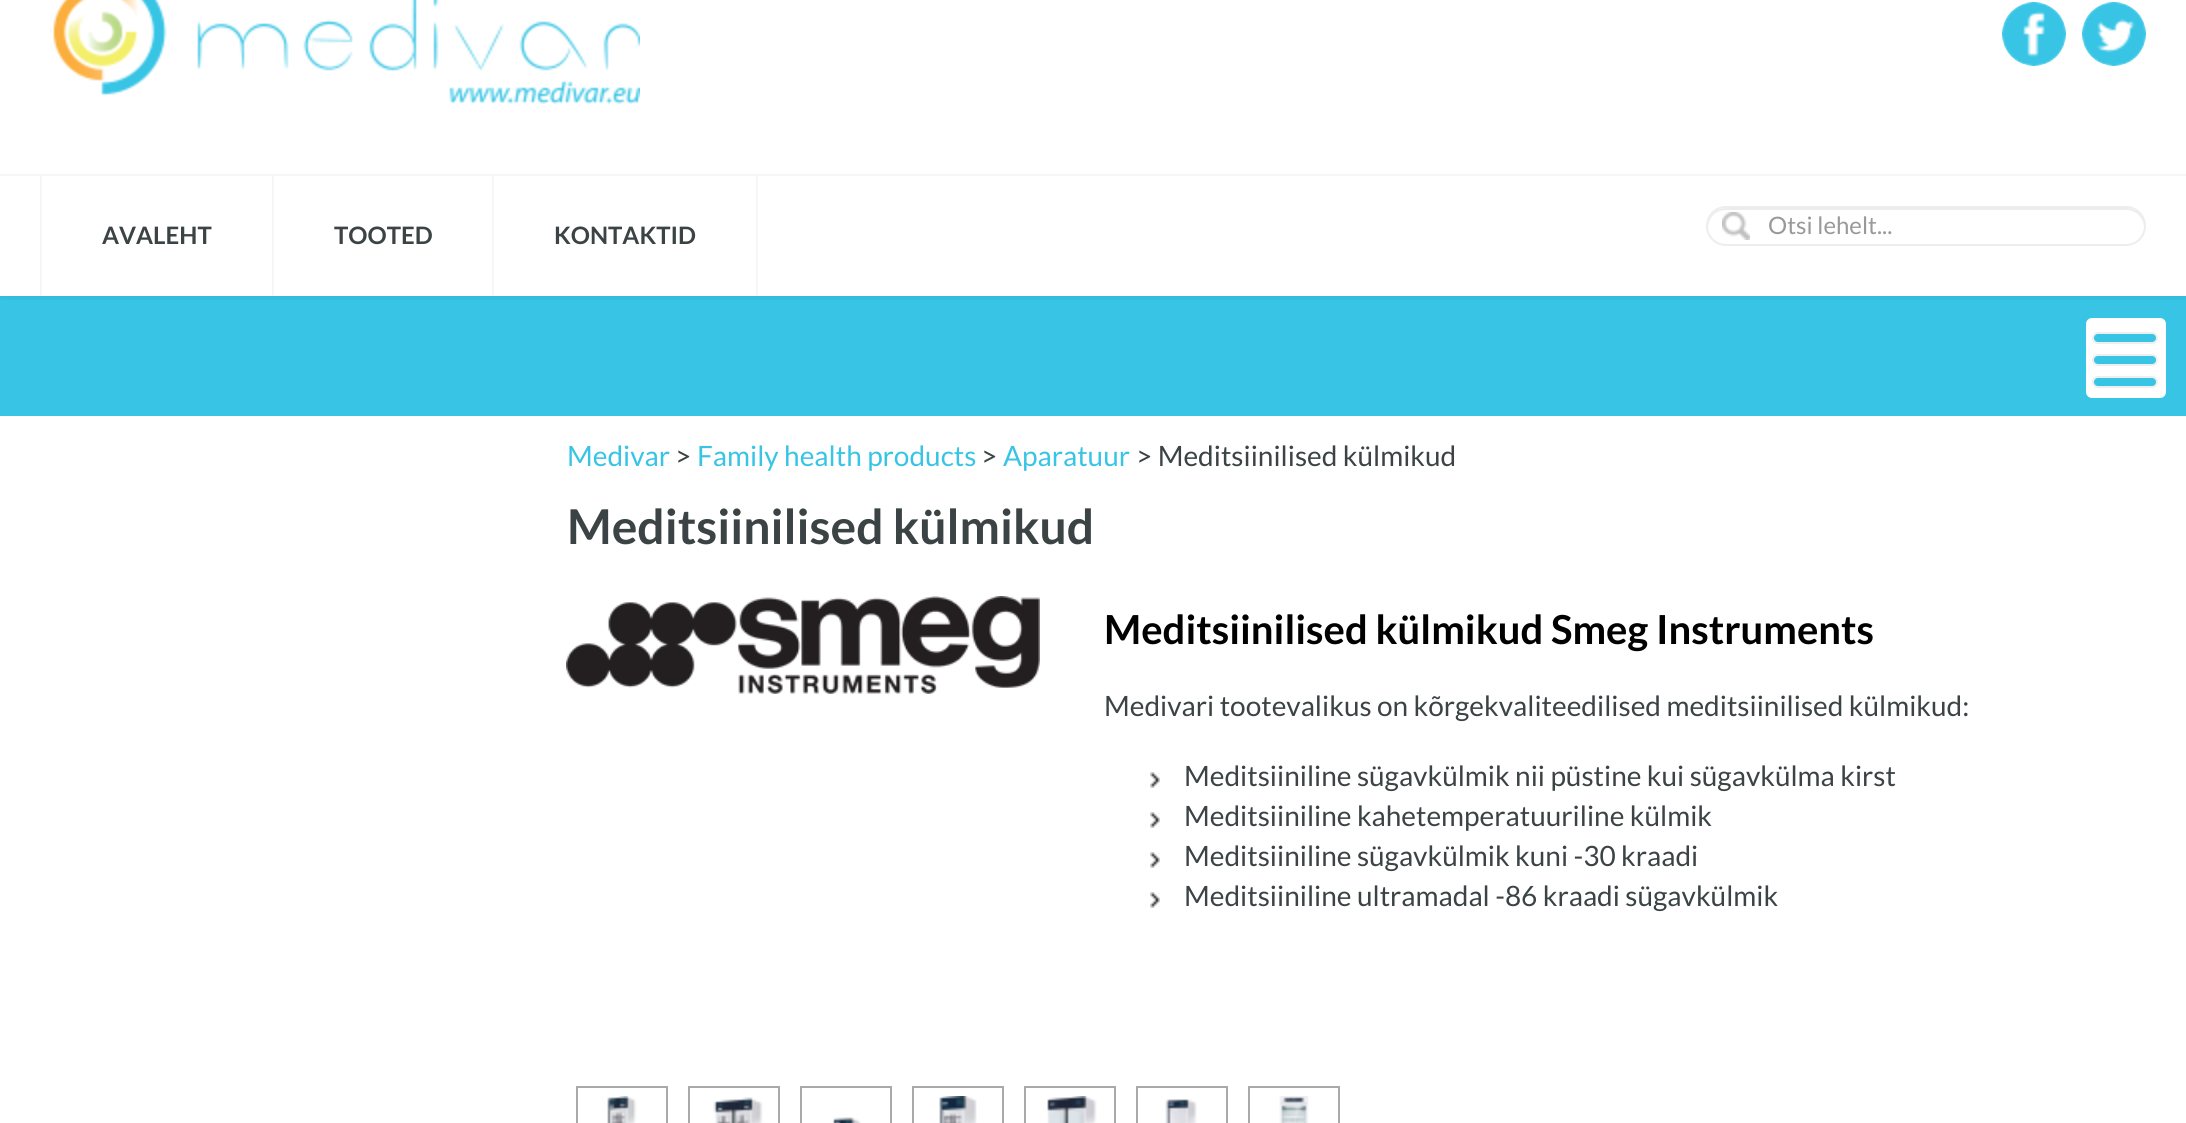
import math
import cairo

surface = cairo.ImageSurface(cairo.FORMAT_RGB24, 2186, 1123)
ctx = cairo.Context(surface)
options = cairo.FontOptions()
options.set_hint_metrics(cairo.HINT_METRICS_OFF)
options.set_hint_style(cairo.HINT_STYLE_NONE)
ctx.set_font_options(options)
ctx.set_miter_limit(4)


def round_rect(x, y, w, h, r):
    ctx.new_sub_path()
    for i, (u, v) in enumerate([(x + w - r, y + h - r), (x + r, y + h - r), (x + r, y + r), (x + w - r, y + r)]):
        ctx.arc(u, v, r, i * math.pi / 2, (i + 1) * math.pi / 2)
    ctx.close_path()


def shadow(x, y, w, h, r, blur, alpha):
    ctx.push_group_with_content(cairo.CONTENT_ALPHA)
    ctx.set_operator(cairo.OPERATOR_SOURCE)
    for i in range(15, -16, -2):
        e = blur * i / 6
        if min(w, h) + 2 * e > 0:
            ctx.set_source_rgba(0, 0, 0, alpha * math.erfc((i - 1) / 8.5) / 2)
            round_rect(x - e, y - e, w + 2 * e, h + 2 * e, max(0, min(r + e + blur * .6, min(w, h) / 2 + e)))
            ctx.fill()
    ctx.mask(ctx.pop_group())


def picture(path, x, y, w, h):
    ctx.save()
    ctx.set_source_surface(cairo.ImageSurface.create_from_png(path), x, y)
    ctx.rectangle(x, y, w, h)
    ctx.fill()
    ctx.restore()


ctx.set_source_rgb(1, 1, 1)
ctx.paint()
ctx.set_source_rgb(0.216, 0.769, 0.898)
ctx.rectangle(0, 296, 2186, 120)
ctx.fill()
ctx.save()
ctx.rectangle(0, 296, 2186, 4)
ctx.clip()
ctx.set_source_rgb(0, 0, 0)
shadow(0, -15, 2186, 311, 0, 5, 0.1)
ctx.restore()
picture("img1.png", 50, 0, 590, 104)
picture("img2.png", 2002, 2, 64, 64)
picture("img3.png", 2082, 2, 64, 64)
ctx.set_source_rgb(0.961, 0.961, 0.961)
ctx.rectangle(0, 174, 2186, 2)
ctx.fill()
ctx.rectangle(756, 176, 2, 120)
ctx.fill()
ctx.rectangle(40, 176, 2, 120)
ctx.fill()
ctx.select_font_face("Lato", cairo.FONT_SLANT_NORMAL, cairo.FONT_WEIGHT_BOLD)
ctx.set_font_size(24)
ctx.set_source_rgb(0.231, 0.263, 0.271)
ctx.move_to(102, 244)
ctx.show_text("AVALEHT")
ctx.set_source_rgb(0.961, 0.961, 0.961)
ctx.rectangle(272, 176, 2, 120)
ctx.fill()
ctx.set_source_rgb(0.231, 0.263, 0.271)
ctx.move_to(334, 244)
ctx.show_text("TOOTED")
ctx.set_source_rgb(0.961, 0.961, 0.961)
ctx.rectangle(492, 176, 2, 120)
ctx.fill()
ctx.set_source_rgb(0.231, 0.263, 0.271)
ctx.move_to(554, 244)
ctx.show_text("KONTAKTID")
ctx.set_source_rgb(0.925, 0.925, 0.925)
ctx.new_path()
ctx.move_to(1726, 210)
ctx.line_to(2126, 210)
ctx.curve_to(2136, 210, 2143, 217, 2144, 227)
ctx.curve_to(2145, 217, 2136, 208, 2126, 208)
ctx.line_to(1726, 208)
ctx.curve_to(1716, 208, 1707, 217, 1708, 227)
ctx.curve_to(1709, 217, 1716, 210, 1726, 210)
ctx.close_path()
ctx.fill()
round_rect(1707, 207, 438, 38, 19)
ctx.set_source_rgb(0.929, 0.929, 0.929)
ctx.stroke()
picture("img4.png", 1722, 212, 28, 28)
ctx.select_font_face("Lato")
ctx.set_source_rgb(0.6, 0.6, 0.6)
ctx.move_to(1768, 234)
ctx.show_text("Otsi lehelt...")
ctx.set_source_rgb(1, 1, 1)
round_rect(2086, 318, 80, 80, 6)
ctx.fill()
ctx.set_source_rgb(0.216, 0.769, 0.898)
round_rect(2093, 333, 64, 10, 5)
ctx.fill_preserve()
ctx.set_source_rgb(0.933, 0.933, 0.933)
ctx.stroke()
ctx.set_source_rgb(0.216, 0.769, 0.898)
round_rect(2093, 355, 64, 10, 5)
ctx.fill_preserve()
ctx.set_source_rgb(0.933, 0.933, 0.933)
ctx.stroke()
ctx.set_source_rgb(0.216, 0.769, 0.898)
round_rect(2093, 377, 64, 10, 5)
ctx.fill_preserve()
ctx.set_source_rgb(0.933, 0.933, 0.933)
ctx.stroke()
ctx.set_font_size(28)
ctx.set_source_rgb(0.216, 0.769, 0.898)
ctx.move_to(567, 466)
ctx.show_text("Medivar")
ctx.set_source_rgb(0.231, 0.263, 0.271)
ctx.move_to(675, 466)
ctx.show_text(">")
ctx.set_source_rgb(0.216, 0.769, 0.898)
ctx.move_to(697, 466)
ctx.show_text("Family health products")
ctx.set_source_rgb(0.231, 0.263, 0.271)
ctx.move_to(981, 466)
ctx.show_text(">")
ctx.set_source_rgb(0.216, 0.769, 0.898)
ctx.move_to(1003, 466)
ctx.show_text("Aparatuur")
ctx.set_source_rgb(0.231, 0.263, 0.271)
ctx.move_to(1136, 466)
ctx.show_text("> Meditsiinilised külmikud")
ctx.select_font_face("Lato", cairo.FONT_SLANT_NORMAL, cairo.FONT_WEIGHT_BOLD)
ctx.set_font_size(48)
ctx.move_to(567, 544)
ctx.show_text("Meditsiinilised külmikud")
picture("img5.png", 566, 596, 474, 98)
ctx.set_font_size(40)
ctx.set_source_rgb(0, 0, 0)
ctx.move_to(1104, 644)
ctx.show_text("Meditsiinilised külmikud Smeg Instruments")
ctx.select_font_face("Lato")
ctx.set_font_size(28)
ctx.set_source_rgb(0.231, 0.263, 0.271)
ctx.move_to(1104, 716)
ctx.show_text("Medivari tootevalikus on kõrgekvaliteedilised meditsiinilised külmikud:")
picture("img6.png", 1150, 772, 10, 16)
ctx.move_to(1184, 786)
ctx.show_text("Meditsiiniline sügavkülmik nii püstine kui sügavkülma kirst")
picture("img6.png", 1150, 812, 10, 16)
ctx.move_to(1184, 826)
ctx.show_text("Meditsiiniline kahetemperatuuriline külmik")
picture("img6.png", 1150, 852, 10, 16)
ctx.move_to(1184, 866)
ctx.show_text("Meditsiiniline sügavkülmik kuni -30 kraadi")
picture("img6.png", 1150, 892, 10, 16)
ctx.move_to(1184, 906)
ctx.show_text("Meditsiiniline ultramadal -86 kraadi sügavkülmik")
ctx.rectangle(577, 1087, 90, 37)
ctx.set_source_rgb(0.663, 0.663, 0.663)
ctx.stroke()
picture("img7.png", 607, 1096, 30, 27)
ctx.rectangle(689, 1087, 90, 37)
ctx.stroke()
picture("img8.png", 713, 1097, 50, 26)
ctx.rectangle(801, 1087, 90, 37)
ctx.stroke()
picture("img9.png", 833, 1117, 28, 6)
ctx.rectangle(913, 1087, 90, 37)
ctx.stroke()
picture("img10.png", 939, 1096, 38, 27)
ctx.rectangle(1025, 1087, 90, 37)
ctx.stroke()
picture("img11.png", 1047, 1096, 50, 27)
ctx.rectangle(1137, 1087, 90, 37)
ctx.stroke()
picture("img12.png", 1165, 1099, 32, 24)
ctx.rectangle(1249, 1087, 90, 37)
ctx.stroke()
picture("img13.png", 1279, 1096, 30, 27)
surface.write_to_png("page.png")
